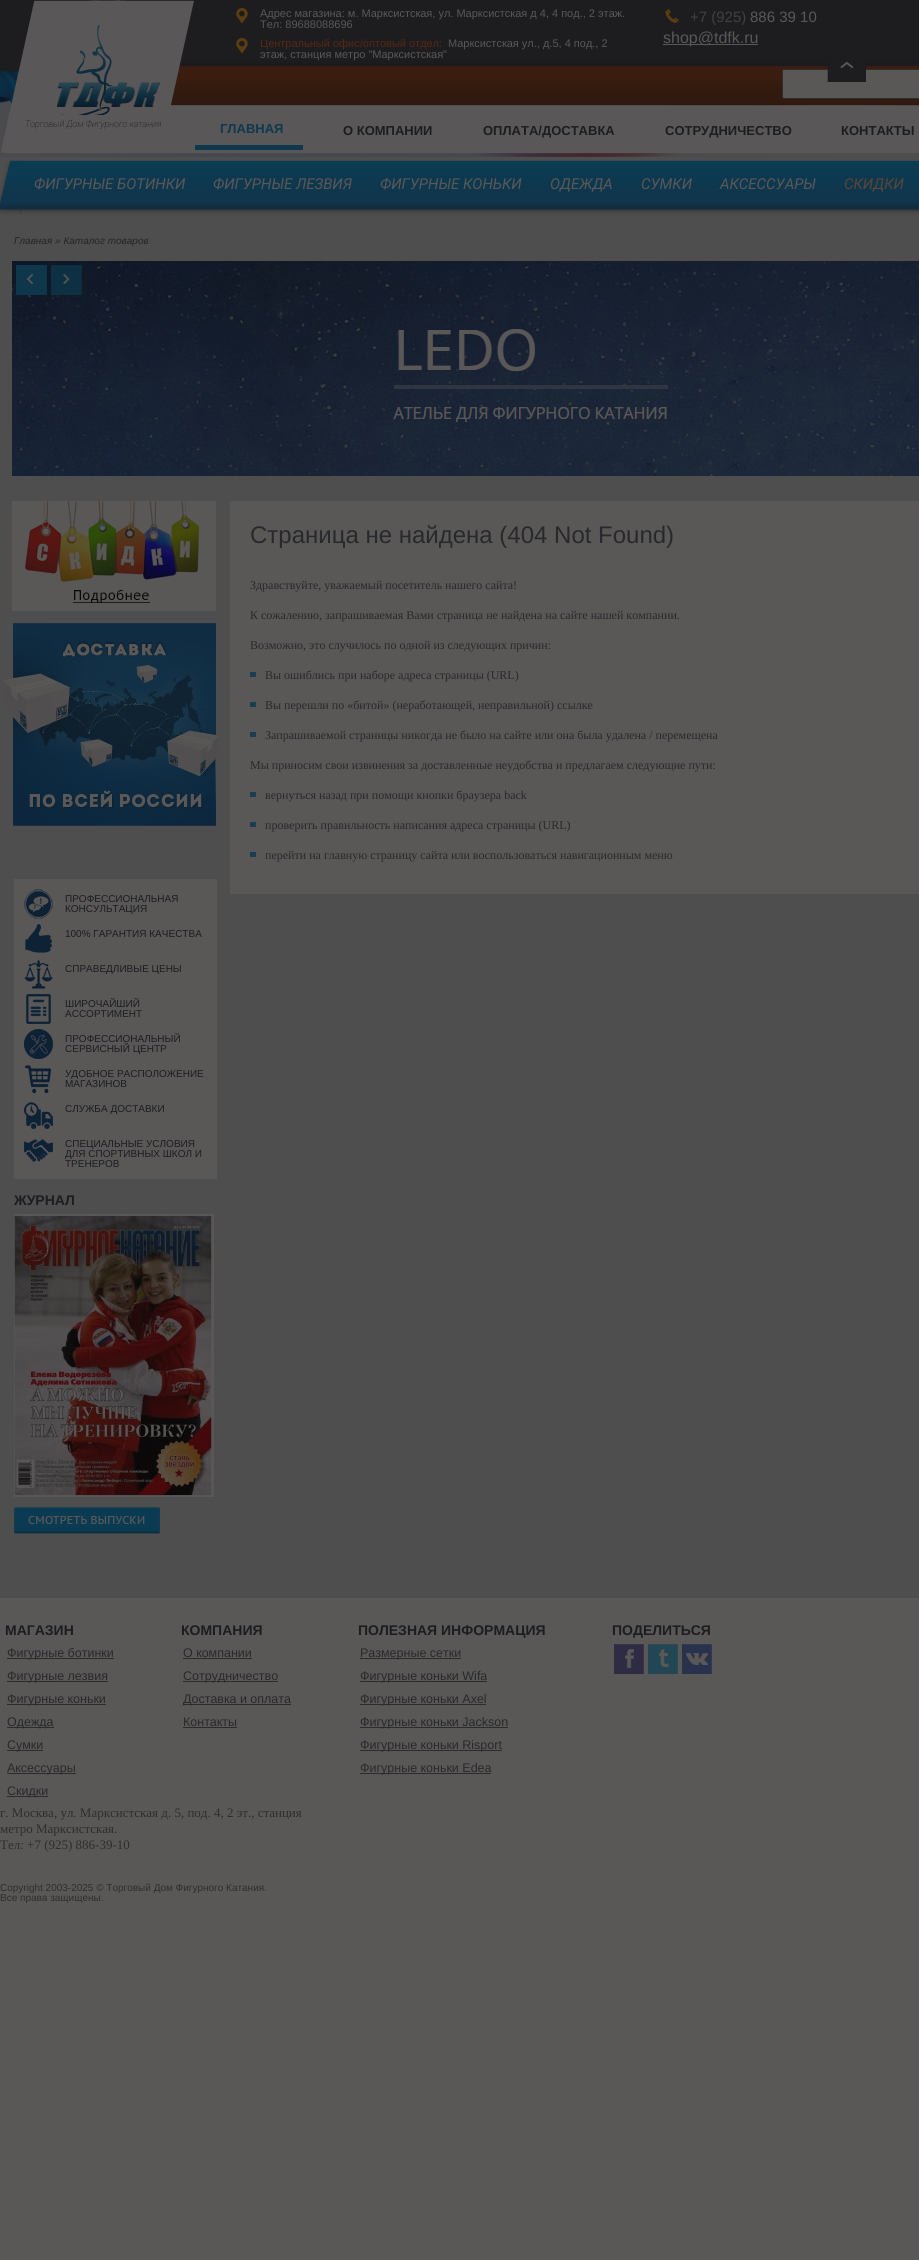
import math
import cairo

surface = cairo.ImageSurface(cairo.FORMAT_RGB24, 919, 2260)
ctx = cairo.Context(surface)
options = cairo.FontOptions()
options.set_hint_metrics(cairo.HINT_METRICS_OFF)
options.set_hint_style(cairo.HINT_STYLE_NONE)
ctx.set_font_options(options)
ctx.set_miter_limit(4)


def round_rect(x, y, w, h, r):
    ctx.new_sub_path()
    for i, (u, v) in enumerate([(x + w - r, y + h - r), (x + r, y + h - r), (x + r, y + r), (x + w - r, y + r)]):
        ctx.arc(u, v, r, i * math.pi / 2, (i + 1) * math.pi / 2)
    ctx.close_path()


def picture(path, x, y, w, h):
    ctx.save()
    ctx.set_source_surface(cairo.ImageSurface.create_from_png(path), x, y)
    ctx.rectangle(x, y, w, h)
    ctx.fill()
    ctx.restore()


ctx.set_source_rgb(0.353, 0.341, 0.341)
ctx.paint()
ctx.set_source_rgb(0.306, 0.306, 0.31)
ctx.rectangle(0, 157, 919, 1441)
ctx.fill()
picture("img1.png", 0, 0, 919, 157)
picture("img2.png", 0, 0, 919, 154)
picture("img3.png", 236, 8, 12, 16)
ctx.select_font_face("Liberation Sans")
ctx.set_font_size(11)
ctx.set_source_rgb(0.353, 0.341, 0.341)
ctx.move_to(260, 17)
ctx.show_text("Адрес магазина: м. Марксистская, ул. Марксистская д 4, 4 под., 2 этаж.")
ctx.move_to(260, 28)
ctx.show_text("Тел: 89688088696")
picture("img4.png", 665, 9, 14, 14)
ctx.set_font_size(15)
ctx.set_source_rgb(0.251, 0.247, 0.255)
ctx.move_to(690, 22)
ctx.show_text("+7 (925)")
ctx.set_source_rgb(0.353, 0.341, 0.341)
ctx.move_to(750, 22)
ctx.show_text("886 39 10")
picture("img5.png", 57, 25, 103, 90)
picture("img3.png", 236, 38, 12, 16)
ctx.set_font_size(11)
ctx.set_source_rgb(0.337, 0.157, 0.075)
ctx.move_to(260, 47)
ctx.show_text("Центральный офис/оптовый отдел:")
ctx.set_source_rgb(0.353, 0.341, 0.341)
ctx.move_to(448, 47)
ctx.show_text("Марксистская ул., д.5, 4 под., 2")
ctx.move_to(260, 58)
ctx.show_text("этаж, станция метро \"Марксистская\"")
ctx.rectangle(663, 44, 95, 1)
ctx.fill()
ctx.set_font_size(16)
ctx.move_to(663, 43)
ctx.show_text("shop@tdfk.ru")
round_rect(782.5, 69.5, 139, 29, 1.5)
ctx.fill_preserve()
ctx.set_source_rgb(0.188, 0.176, 0.176)
ctx.set_line_width(1)
ctx.stroke()
ctx.select_font_face("Roboto Thin", cairo.FONT_SLANT_ITALIC)
ctx.set_font_size(9)
ctx.set_source_rgb(0.043, 0.031, 0.031)
ctx.move_to(25, 127)
ctx.show_text("Торговый Дом Фигурного катания")
ctx.set_source_rgb(0.055, 0.22, 0.306)
ctx.rectangle(195, 145, 108, 5)
ctx.fill()
ctx.select_font_face("Liberation Sans", cairo.FONT_SLANT_NORMAL, cairo.FONT_WEIGHT_BOLD)
ctx.set_font_size(13)
ctx.move_to(220, 133)
ctx.show_text("ГЛАВНАЯ")
ctx.set_source_rgb(0.106, 0.114, 0.129)
ctx.move_to(343, 135)
ctx.show_text("О КОМПАНИИ")
ctx.move_to(483, 135)
ctx.show_text("ОПЛАТА/ДОСТАВКА")
ctx.move_to(665, 135)
ctx.show_text("СОТРУДНИЧЕСТВО")
ctx.move_to(841, 135)
ctx.show_text("КОНТАКТЫ")
picture("img6.png", 0, 160, 21, 55)
picture("img7.png", 20, 160, 899, 55)
ctx.select_font_face("Roboto", cairo.FONT_SLANT_ITALIC)
ctx.set_font_size(15)
ctx.set_source_rgb(0.353, 0.341, 0.341)
ctx.move_to(34, 189)
ctx.show_text("ФИГУРНЫЕ БОТИНКИ")
ctx.move_to(213, 189)
ctx.show_text("ФИГУРНЫЕ ЛЕЗВИЯ")
ctx.move_to(380, 189)
ctx.show_text("ФИГУРНЫЕ КОНЬКИ")
ctx.move_to(550, 189)
ctx.show_text("ОДЕЖДА")
ctx.move_to(641, 189)
ctx.show_text("СУМКИ")
ctx.move_to(720, 189)
ctx.show_text("АКСЕССУАРЫ")
ctx.set_source_rgb(0.353, 0.271, 0.22)
ctx.move_to(844, 189)
ctx.show_text("СКИДКИ")
ctx.select_font_face("Liberation Sans", cairo.FONT_SLANT_ITALIC)
ctx.set_font_size(10)
ctx.set_source_rgb(0.141, 0.141, 0.149)
ctx.move_to(14, 244)
ctx.show_text("Главная » Каталог товаров")
picture("img8.png", 12, 261, 907, 215)
picture("img9.png", 16, 265, 31, 30)
picture("img10.png", 51, 265, 31, 30)
ctx.set_source_rgb(0.353, 0.341, 0.341)
ctx.rectangle(230, 501, 689, 393)
ctx.fill()
ctx.select_font_face("Liberation Sans")
ctx.set_font_size(24)
ctx.set_source_rgb(0.157, 0.161, 0.173)
ctx.move_to(250, 543)
ctx.show_text("Страница не найдена (404 Not Found)")
ctx.select_font_face("Liberation Serif")
ctx.set_font_size(12)
ctx.move_to(250, 589)
ctx.show_text("Здравствуйте, уважаемый посетитель нашего сайта!")
ctx.move_to(250, 619)
ctx.show_text("К сожалению, запрашиваемая Вами страница не найдена на сайте нашей компании.")
ctx.move_to(250, 649)
ctx.show_text("Возможно, это случилось по одной из следующих причин:")
ctx.set_source_rgb(0.094, 0.243, 0.314)
ctx.rectangle(250, 672, 6, 5)
ctx.fill()
ctx.set_source_rgb(0.157, 0.161, 0.173)
ctx.move_to(265, 679)
ctx.show_text("Вы ошиблись при наборе адреса страницы (URL)")
ctx.set_source_rgb(0.094, 0.243, 0.314)
ctx.rectangle(250, 702, 6, 5)
ctx.fill()
ctx.set_source_rgb(0.157, 0.161, 0.173)
ctx.move_to(265, 709)
ctx.show_text("Вы перешли по «битой» (неработающей, неправильной) ссылке")
ctx.set_source_rgb(0.094, 0.243, 0.314)
ctx.rectangle(250, 732, 6, 5)
ctx.fill()
ctx.set_source_rgb(0.157, 0.161, 0.173)
ctx.move_to(265, 739)
ctx.show_text("Запрашиваемой страницы никогда не было на сайте или она была удалена / перемещена")
ctx.move_to(250, 769)
ctx.show_text("Мы приносим свои извинения за доставленные неудобства и предлагаем следующие пути:")
ctx.set_source_rgb(0.094, 0.243, 0.314)
ctx.rectangle(250, 792, 6, 5)
ctx.fill()
ctx.set_source_rgb(0.157, 0.161, 0.173)
ctx.move_to(265, 799)
ctx.show_text("вернуться назад при помощи кнопки браузера back")
ctx.set_source_rgb(0.094, 0.243, 0.314)
ctx.rectangle(250, 822, 6, 5)
ctx.fill()
ctx.set_source_rgb(0.157, 0.161, 0.173)
ctx.move_to(265, 829)
ctx.show_text("проверить правильность написания адреса страницы (URL)")
ctx.set_source_rgb(0.094, 0.243, 0.314)
ctx.rectangle(250, 852, 6, 5)
ctx.fill()
ctx.set_source_rgb(0.157, 0.161, 0.173)
ctx.move_to(265, 859)
ctx.show_text("перейти на главную страницу сайта или воспользоваться навигационным меню")
picture("img11.png", 12, 501, 204, 110)
picture("img12.png", 2, 623, 217, 203)
ctx.set_source_rgb(0.353, 0.341, 0.341)
ctx.rectangle(14, 879, 203, 300)
ctx.fill()
picture("img13.png", 24, 889, 29, 30)
ctx.select_font_face("Liberation Sans")
ctx.set_font_size(10)
ctx.set_source_rgb(0.106, 0.114, 0.129)
ctx.move_to(65, 902)
ctx.show_text("ПРОФЕССИОНАЛЬНАЯ")
ctx.move_to(65, 912)
ctx.show_text("КОНСУЛЬТАЦИЯ")
picture("img14.png", 25, 924, 27, 29)
ctx.move_to(65, 937)
ctx.show_text("100% ГАРАНТИЯ КАЧЕСТВА")
picture("img15.png", 24, 959, 29, 30)
ctx.move_to(65, 972)
ctx.show_text("СПРАВЕДЛИВЫЕ ЦЕНЫ")
picture("img16.png", 26, 994, 25, 30)
ctx.move_to(65, 1007)
ctx.show_text("ШИРОЧАЙШИЙ")
ctx.move_to(65, 1017)
ctx.show_text("АССОРТИМЕНТ")
picture("img17.png", 24, 1029, 29, 30)
ctx.move_to(65, 1042)
ctx.show_text("ПРОФЕССИОНАЛЬНЫЙ")
ctx.move_to(65, 1052)
ctx.show_text("СЕРВИСНЫЙ ЦЕНТР")
picture("img18.png", 24, 1064, 28, 30)
ctx.move_to(65, 1077)
ctx.show_text("УДОБНОЕ РАСПОЛОЖЕНИЕ")
ctx.move_to(65, 1087)
ctx.show_text("МАГАЗИНОВ")
picture("img19.png", 24, 1102, 29, 27)
ctx.move_to(65, 1112)
ctx.show_text("СЛУЖБА ДОСТАВКИ")
picture("img20.png", 24, 1139, 29, 23)
ctx.move_to(65, 1147)
ctx.show_text("СПЕЦИАЛЬНЫЕ УСЛОВИЯ")
ctx.move_to(65, 1157)
ctx.show_text("ДЛЯ СПОРТИВНЫХ ШКОЛ И")
ctx.move_to(65, 1167)
ctx.show_text("ТРЕНЕРОВ")
ctx.select_font_face("Liberation Sans", cairo.FONT_SLANT_NORMAL, cairo.FONT_WEIGHT_BOLD)
ctx.set_font_size(14)
ctx.move_to(14, 1205)
ctx.show_text("ЖУРНАЛ")
picture("img21.png", 14, 1214, 200, 283)
picture("img22.png", 14, 1507, 146, 27)
ctx.move_to(5, 1635)
ctx.show_text("МАГАЗИН")
ctx.set_source_rgb(0.173, 0.169, 0.18)
ctx.rectangle(7, 1658, 107, 1)
ctx.fill()
ctx.select_font_face("Liberation Sans")
ctx.set_font_size(12.5)
ctx.set_source_rgb(0.157, 0.161, 0.173)
ctx.move_to(7, 1657)
ctx.show_text("Фигурные ботинки")
ctx.set_source_rgb(0.173, 0.169, 0.18)
ctx.rectangle(7, 1681, 101, 1)
ctx.fill()
ctx.set_source_rgb(0.157, 0.161, 0.173)
ctx.move_to(7, 1680)
ctx.show_text("Фигурные лезвия")
ctx.set_source_rgb(0.173, 0.169, 0.18)
ctx.rectangle(7, 1704, 99, 1)
ctx.fill()
ctx.set_source_rgb(0.157, 0.161, 0.173)
ctx.move_to(7, 1703)
ctx.show_text("Фигурные коньки")
ctx.set_source_rgb(0.173, 0.169, 0.18)
ctx.rectangle(7, 1727, 47, 1)
ctx.fill()
ctx.set_source_rgb(0.157, 0.161, 0.173)
ctx.move_to(7, 1726)
ctx.show_text("Одежда")
ctx.set_source_rgb(0.173, 0.169, 0.18)
ctx.rectangle(7, 1750, 36, 1)
ctx.fill()
ctx.set_source_rgb(0.157, 0.161, 0.173)
ctx.move_to(7, 1749)
ctx.show_text("Сумки")
ctx.set_source_rgb(0.173, 0.169, 0.18)
ctx.rectangle(7, 1773, 69, 1)
ctx.fill()
ctx.set_source_rgb(0.157, 0.161, 0.173)
ctx.move_to(7, 1772)
ctx.show_text("Аксессуары")
ctx.set_source_rgb(0.173, 0.169, 0.18)
ctx.rectangle(7, 1796, 41, 1)
ctx.fill()
ctx.set_source_rgb(0.157, 0.161, 0.173)
ctx.move_to(7, 1795)
ctx.show_text("Скидки")
ctx.select_font_face("Liberation Sans", cairo.FONT_SLANT_NORMAL, cairo.FONT_WEIGHT_BOLD)
ctx.set_font_size(14)
ctx.set_source_rgb(0.106, 0.114, 0.129)
ctx.move_to(181, 1635)
ctx.show_text("КОМПАНИЯ")
ctx.select_font_face("Liberation Sans")
ctx.set_font_size(12.5)
ctx.set_source_rgb(0.157, 0.161, 0.173)
ctx.move_to(183, 1657)
ctx.show_text("О компании")
ctx.set_source_rgb(0.173, 0.169, 0.18)
ctx.rectangle(183, 1658, 69, 1)
ctx.fill()
ctx.rectangle(183, 1681, 95, 1)
ctx.fill()
ctx.set_source_rgb(0.157, 0.161, 0.173)
ctx.move_to(183, 1680)
ctx.show_text("Сотрудничество")
ctx.set_source_rgb(0.173, 0.169, 0.18)
ctx.rectangle(183, 1704, 108, 1)
ctx.fill()
ctx.set_source_rgb(0.157, 0.161, 0.173)
ctx.move_to(183, 1703)
ctx.show_text("Доставка и оплата")
ctx.move_to(183, 1726)
ctx.show_text("Контакты")
ctx.set_source_rgb(0.173, 0.169, 0.18)
ctx.rectangle(183, 1727, 54, 1)
ctx.fill()
ctx.select_font_face("Liberation Sans", cairo.FONT_SLANT_NORMAL, cairo.FONT_WEIGHT_BOLD)
ctx.set_font_size(14)
ctx.set_source_rgb(0.106, 0.114, 0.129)
ctx.move_to(358, 1635)
ctx.show_text("ПОЛЕЗНАЯ ИНФОРМАЦИЯ")
ctx.set_source_rgb(0.173, 0.169, 0.18)
ctx.rectangle(360, 1658, 101, 1)
ctx.fill()
ctx.select_font_face("Liberation Sans")
ctx.set_font_size(12.5)
ctx.set_source_rgb(0.157, 0.161, 0.173)
ctx.move_to(360, 1657)
ctx.show_text("Размерные сетки")
ctx.set_source_rgb(0.173, 0.169, 0.18)
ctx.rectangle(360, 1681, 127, 1)
ctx.fill()
ctx.set_source_rgb(0.157, 0.161, 0.173)
ctx.move_to(360, 1680)
ctx.show_text("Фигурные коньки Wifa")
ctx.set_source_rgb(0.173, 0.169, 0.18)
ctx.rectangle(360, 1704, 126, 1)
ctx.fill()
ctx.set_source_rgb(0.157, 0.161, 0.173)
ctx.move_to(360, 1703)
ctx.show_text("Фигурные коньки Axel")
ctx.set_source_rgb(0.173, 0.169, 0.18)
ctx.rectangle(360, 1727, 148, 1)
ctx.fill()
ctx.set_source_rgb(0.157, 0.161, 0.173)
ctx.move_to(360, 1726)
ctx.show_text("Фигурные коньки Jackson")
ctx.set_source_rgb(0.173, 0.169, 0.18)
ctx.rectangle(360, 1750, 142, 1)
ctx.fill()
ctx.set_source_rgb(0.157, 0.161, 0.173)
ctx.move_to(360, 1749)
ctx.show_text("Фигурные коньки Risport")
ctx.set_source_rgb(0.173, 0.169, 0.18)
ctx.rectangle(360, 1773, 131, 1)
ctx.fill()
ctx.set_source_rgb(0.157, 0.161, 0.173)
ctx.move_to(360, 1772)
ctx.show_text("Фигурные коньки Edea")
ctx.select_font_face("Liberation Sans", cairo.FONT_SLANT_NORMAL, cairo.FONT_WEIGHT_BOLD)
ctx.set_font_size(14)
ctx.set_source_rgb(0.106, 0.114, 0.129)
ctx.move_to(612, 1635)
ctx.show_text("ПОДЕЛИТЬСЯ")
picture("img23.png", 614, 1644, 30, 30)
picture("img24.png", 648, 1644, 30, 30)
picture("img25.png", 682, 1644, 30, 30)
ctx.select_font_face("Liberation Serif")
ctx.set_font_size(13)
ctx.set_source_rgb(0.18, 0.176, 0.18)
ctx.move_to(0, 1817)
ctx.show_text("г. Москва, ул. Марксистская д. 5, под. 4, 2 эт., станция")
ctx.move_to(0, 1833)
ctx.show_text("метро Марксистская.")
ctx.move_to(0, 1849)
ctx.show_text("Тел: +7 (925) 886-39-10")
ctx.select_font_face("Liberation Sans")
ctx.set_font_size(10)
ctx.move_to(0, 1891)
ctx.show_text("Copyright 2003-2025 © Торговый Дом Фигурного Катания.")
ctx.move_to(0, 1901)
ctx.show_text("Все права защищены.")
picture("img26.png", 827, 61, 39, 21)
surface.write_to_png("page.png")
